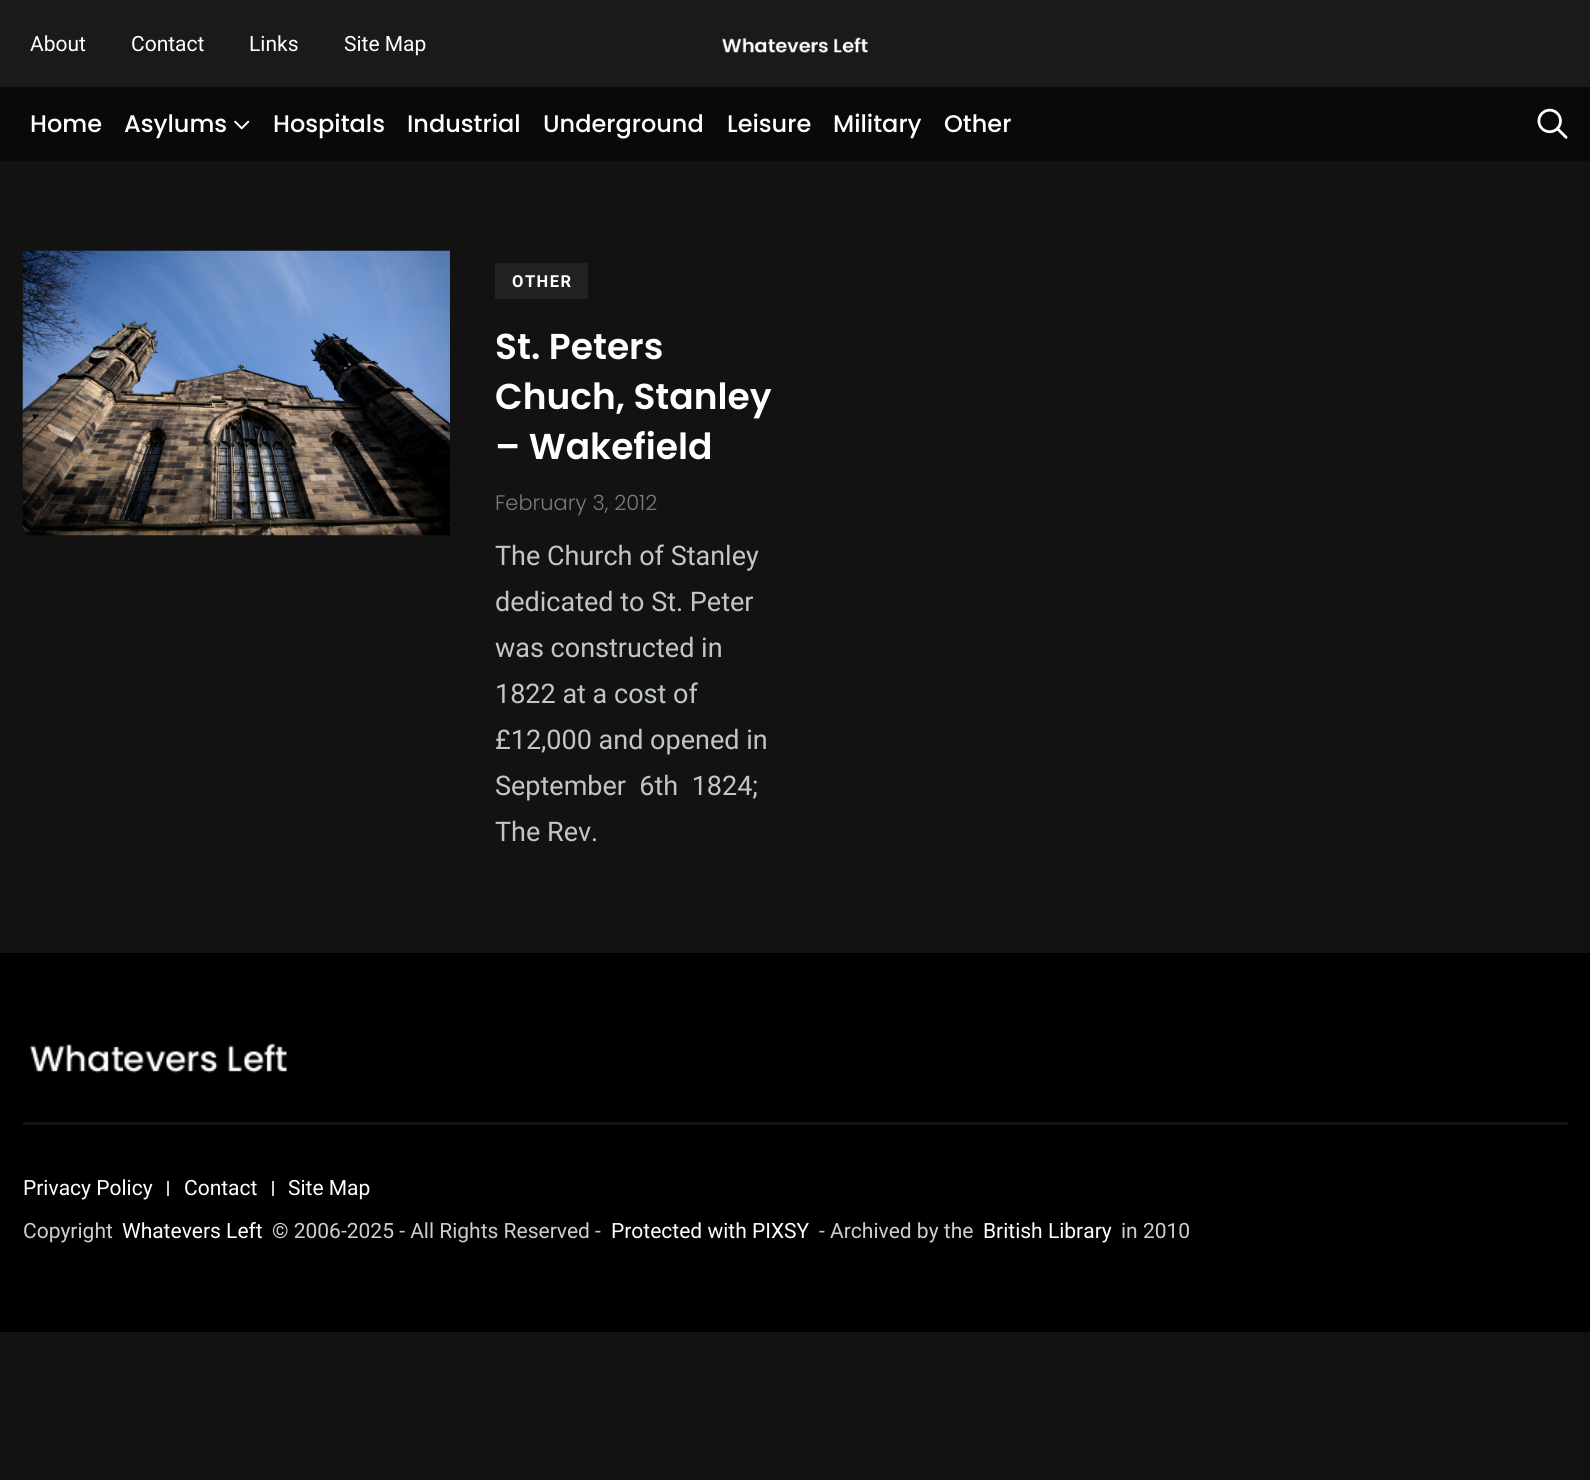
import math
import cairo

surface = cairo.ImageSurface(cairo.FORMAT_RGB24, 1590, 1480)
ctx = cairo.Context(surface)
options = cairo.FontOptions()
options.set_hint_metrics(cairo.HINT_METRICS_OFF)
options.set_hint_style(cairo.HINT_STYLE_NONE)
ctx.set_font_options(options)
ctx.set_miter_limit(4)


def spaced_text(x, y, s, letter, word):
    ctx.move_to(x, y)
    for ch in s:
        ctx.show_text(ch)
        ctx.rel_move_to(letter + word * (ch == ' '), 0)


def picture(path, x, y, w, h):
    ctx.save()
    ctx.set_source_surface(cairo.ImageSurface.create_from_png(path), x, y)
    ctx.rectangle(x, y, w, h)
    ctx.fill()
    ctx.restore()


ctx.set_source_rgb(0.071, 0.071, 0.075)
ctx.paint()
ctx.set_source_rgb(0.102, 0.102, 0.102)
ctx.rectangle(0, 0, 1590, 87)
ctx.fill()
ctx.select_font_face("Roboto")
ctx.set_font_size(21)
ctx.set_source_rgb(1, 1, 1)
ctx.move_to(30, 51)
ctx.show_text("About")
ctx.move_to(131, 51)
ctx.show_text("Contact")
ctx.move_to(249, 51)
ctx.show_text("Links")
ctx.move_to(344, 51)
ctx.show_text("Site Map")
picture("img1.png", 722, 37, 147, 16)
ctx.set_source_rgb(0.039, 0.039, 0.039)
ctx.rectangle(0, 87, 1590, 74)
ctx.fill()
ctx.select_font_face("Poppins Medium")
ctx.set_font_size(24)
ctx.set_source_rgb(1, 1, 1)
ctx.move_to(30, 132)
ctx.show_text("Home")
ctx.move_to(124, 132)
ctx.show_text("Asylums")
picture("img2.png", 234, 120, 16, 10)
ctx.move_to(273, 132)
ctx.show_text("Hospitals")
ctx.move_to(407, 132)
ctx.show_text("Industrial")
ctx.move_to(543, 132)
ctx.show_text("Underground")
ctx.move_to(727, 132)
ctx.show_text("Leisure")
ctx.move_to(833, 132)
ctx.show_text("Military")
ctx.move_to(944, 132)
ctx.show_text("Other")
picture("img3.png", 1537, 108, 31, 31)
picture("img4.png", 22, 250, 428, 286)
ctx.set_source_rgb(0.129, 0.129, 0.129)
ctx.rectangle(495, 263, 93, 36)
ctx.fill()
ctx.select_font_face("Roboto", cairo.FONT_SLANT_NORMAL, cairo.FONT_WEIGHT_BOLD)
ctx.set_font_size(16.5)
ctx.set_source_rgb(1, 1, 1)
spaced_text(512, 287, "OTHER", 1.5, 0)
ctx.select_font_face("Poppins SemiBold")
ctx.set_font_size(36)
ctx.move_to(495, 359)
ctx.show_text("St. Peters")
ctx.move_to(495, 409)
ctx.show_text("Chuch, Stanley")
ctx.move_to(495, 459)
ctx.show_text("– Wakefield")
ctx.select_font_face("Poppins Light")
ctx.set_font_size(21)
ctx.set_source_rgb(0.482, 0.482, 0.482)
ctx.move_to(495, 510)
ctx.show_text("February 3, 2012")
ctx.select_font_face("Roboto")
ctx.set_font_size(27)
ctx.set_source_rgb(0.757, 0.776, 0.788)
ctx.move_to(495, 565)
ctx.show_text("The Church of Stanley")
ctx.move_to(495, 611)
ctx.show_text("dedicated to St. Peter")
ctx.move_to(495, 657)
ctx.show_text("was constructed in")
ctx.move_to(495, 703)
ctx.show_text("1822 at a cost of")
ctx.move_to(495, 749)
ctx.show_text("£12,000 and opened in")
ctx.move_to(495, 795)
ctx.show_text("September  6th  1824;")
ctx.move_to(495, 841)
ctx.show_text("The Rev.")
ctx.set_source_rgb(0, 0, 0)
ctx.rectangle(0, 953, 1590, 379)
ctx.fill()
picture("img5.png", 29, 1043, 258, 30)
ctx.set_source_rgb(0.071, 0.071, 0.075)
ctx.rectangle(23, 1122, 1545, 3)
ctx.fill()
ctx.set_font_size(21)
ctx.set_source_rgb(1, 1, 1)
ctx.move_to(23, 1195)
ctx.show_text("Privacy Policy")
ctx.set_source_rgb(0.808, 0.808, 0.808)
ctx.rectangle(167, 1181, 2, 15)
ctx.fill()
ctx.set_source_rgb(1, 1, 1)
ctx.move_to(184, 1195)
ctx.show_text("Contact")
ctx.set_source_rgb(0.808, 0.808, 0.808)
ctx.rectangle(272, 1181, 2, 15)
ctx.fill()
ctx.set_source_rgb(1, 1, 1)
ctx.move_to(288, 1195)
ctx.show_text("Site Map")
ctx.set_source_rgb(0.808, 0.808, 0.808)
ctx.move_to(23, 1238)
ctx.show_text("Copyright")
ctx.set_source_rgb(1, 1, 1)
ctx.move_to(122, 1238)
ctx.show_text("Whatevers Left")
ctx.set_source_rgb(0.808, 0.808, 0.808)
ctx.move_to(272, 1238)
ctx.show_text("© 2006-2025 - All Rights Reserved -")
ctx.set_source_rgb(1, 1, 1)
ctx.move_to(611, 1238)
ctx.show_text("Protected with PIXSY")
ctx.set_source_rgb(0.808, 0.808, 0.808)
ctx.move_to(819, 1238)
ctx.show_text("- Archived by the")
ctx.set_source_rgb(1, 1, 1)
ctx.move_to(983, 1238)
ctx.show_text("British Library")
ctx.set_source_rgb(0.808, 0.808, 0.808)
ctx.move_to(1121, 1238)
ctx.show_text("in 2010")
surface.write_to_png("page.png")
